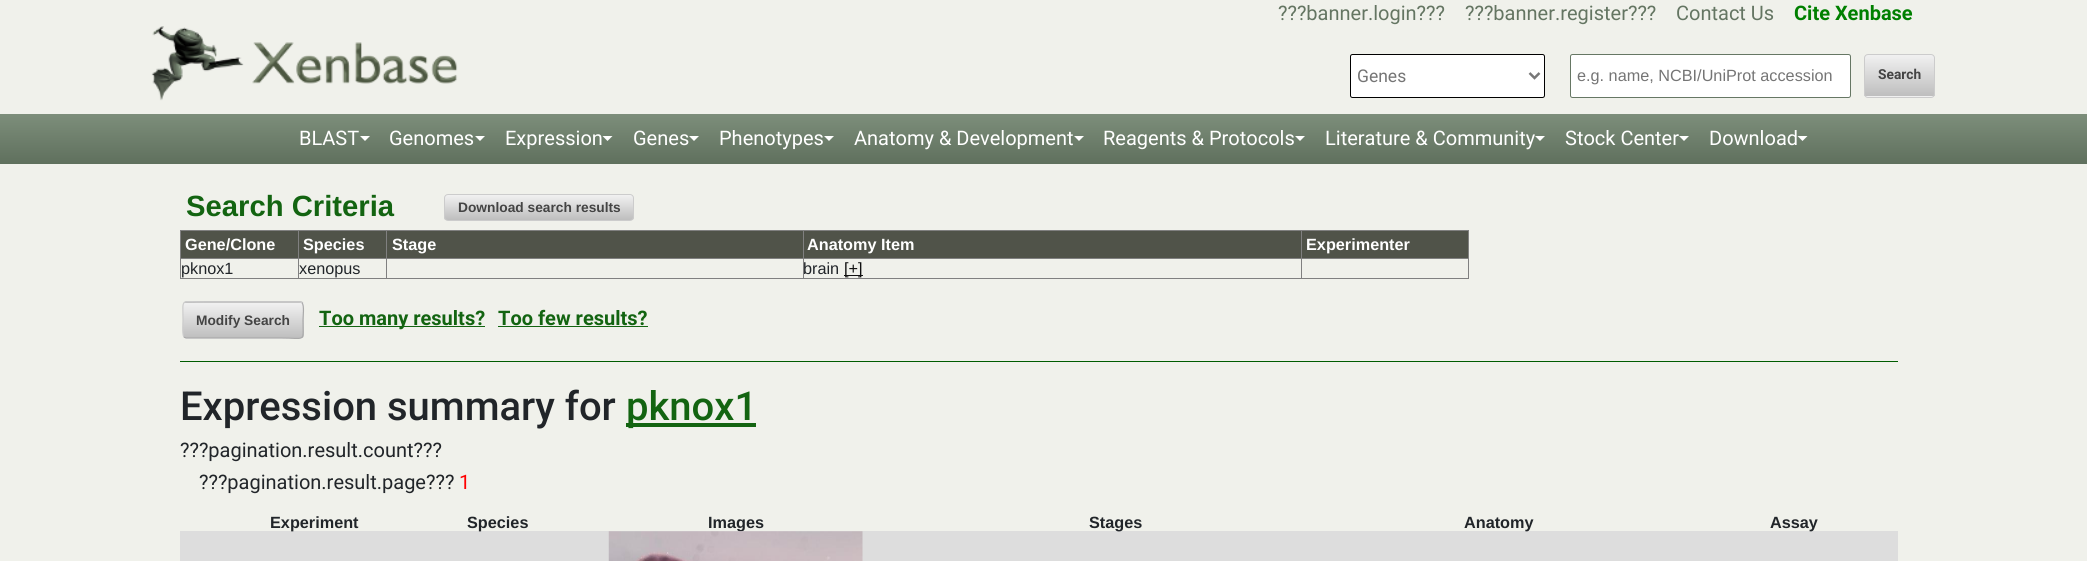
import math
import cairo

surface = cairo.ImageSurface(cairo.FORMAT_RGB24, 2087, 561)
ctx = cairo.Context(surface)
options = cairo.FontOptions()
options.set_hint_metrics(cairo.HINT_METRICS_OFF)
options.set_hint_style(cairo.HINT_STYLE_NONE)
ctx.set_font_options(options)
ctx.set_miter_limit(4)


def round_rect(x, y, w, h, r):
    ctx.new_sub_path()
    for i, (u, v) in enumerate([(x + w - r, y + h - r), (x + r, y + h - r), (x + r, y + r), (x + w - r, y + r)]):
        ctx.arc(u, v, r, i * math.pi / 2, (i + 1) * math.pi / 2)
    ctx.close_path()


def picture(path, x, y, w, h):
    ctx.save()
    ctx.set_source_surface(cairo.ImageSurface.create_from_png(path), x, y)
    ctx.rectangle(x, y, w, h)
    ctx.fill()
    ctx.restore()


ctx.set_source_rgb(0.941, 0.945, 0.918)
ctx.paint()
ctx.select_font_face("Roboto")
ctx.set_font_size(20)
ctx.set_source_rgb(0.392, 0.459, 0.384)
ctx.move_to(1278, 20)
ctx.show_text("???banner.login???")
ctx.move_to(1465, 20)
ctx.show_text("???banner.register???")
ctx.move_to(1676, 20)
ctx.show_text("Contact Us")
ctx.select_font_face("Roboto", cairo.FONT_SLANT_NORMAL, cairo.FONT_WEIGHT_BOLD)
ctx.set_source_rgb(0, 0.502, 0)
ctx.move_to(1794, 20)
ctx.show_text("Cite Xenbase")
picture("img1.png", 151, 26, 307, 75)
ctx.set_source_rgb(1, 1, 1)
round_rect(1350.5, 54.5, 194, 43, 2)
ctx.fill_preserve()
ctx.set_source_rgb(0, 0, 0)
ctx.set_line_width(1)
ctx.stroke()
ctx.new_path()
ctx.move_to(1529.5, 73)
ctx.line_to(1534.5, 78)
ctx.line_to(1539.5, 73)
ctx.set_source_rgb(0.467, 0.467, 0.467)
ctx.set_line_width(2.5)
ctx.stroke()
ctx.select_font_face("Roboto")
ctx.set_font_size(17.5)
ctx.set_source_rgb(0.459, 0.459, 0.459)
ctx.move_to(1357, 82)
ctx.show_text("Genes")
ctx.set_source_rgb(1, 1, 1)
round_rect(1570.5, 54.5, 280, 43, 2)
ctx.fill_preserve()
ctx.set_source_rgb(0.4, 0.467, 0.392)
ctx.set_line_width(1)
ctx.stroke()
ctx.select_font_face("Liberation Sans")
ctx.set_font_size(16.25)
ctx.set_source_rgb(0.459, 0.459, 0.459)
ctx.move_to(1577, 81)
ctx.show_text("e.g. name, NCBI/UniProt accession")
ctx.save()
round_rect(1864, 54, 71, 44, 4)
ctx.clip()
gradient = cairo.LinearGradient(1899, 55, 1899, 96)
gradient.add_color_stop_rgba(0, 0.945, 0.945, 0.945, 1)
gradient.add_color_stop_rgba(1, 0.745, 0.745, 0.745, 1)
ctx.set_source(gradient)
ctx.rectangle(1864, 55, 71, 41)
ctx.fill()
gradient = cairo.LinearGradient(1899, 96, 1899, 138)
gradient.add_color_stop_rgba(0, 0.945, 0.945, 0.945, 1)
gradient.add_color_stop_rgba(1, 0.745, 0.745, 0.745, 1)
ctx.set_source(gradient)
ctx.rectangle(1864, 96, 71, 2)
ctx.fill()
ctx.restore()
round_rect(1864.5, 54.5, 70, 43, 3.5)
ctx.set_source_rgb(0.8, 0.8, 0.8)
ctx.stroke()
ctx.select_font_face("Roboto", cairo.FONT_SLANT_NORMAL, cairo.FONT_WEIGHT_BOLD)
ctx.set_font_size(13.75)
ctx.set_source_rgb(0.267, 0.267, 0.267)
ctx.move_to(1878, 79)
ctx.show_text("Search")
gradient = cairo.LinearGradient(1044, 114, 1044, 164)
gradient.add_color_stop_rgba(0, 0.49, 0.557, 0.482, 1)
gradient.add_color_stop_rgba(1, 0.373, 0.439, 0.365, 1)
ctx.set_source(gradient)
ctx.rectangle(0, 114, 2087, 50)
ctx.fill()
ctx.select_font_face("Roboto")
ctx.set_font_size(20)
ctx.set_source_rgb(1, 1, 1)
ctx.move_to(299, 145)
ctx.show_text("BLAST")
ctx.new_path()
ctx.move_to(360, 136)
ctx.line_to(370, 136)
ctx.line_to(365, 141)
ctx.close_path()
ctx.fill()
ctx.move_to(389, 145)
ctx.show_text("Genomes")
ctx.new_path()
ctx.move_to(475, 136)
ctx.line_to(485, 136)
ctx.line_to(480, 141)
ctx.close_path()
ctx.fill()
ctx.move_to(505, 145)
ctx.show_text("Expression")
ctx.new_path()
ctx.move_to(602.5, 136)
ctx.line_to(612.5, 136)
ctx.line_to(607.5, 141)
ctx.close_path()
ctx.fill()
ctx.move_to(633, 145)
ctx.show_text("Genes")
ctx.new_path()
ctx.move_to(689, 136)
ctx.line_to(699, 136)
ctx.line_to(694, 141)
ctx.close_path()
ctx.fill()
ctx.move_to(719, 145)
ctx.show_text("Phenotypes")
ctx.new_path()
ctx.move_to(824, 136)
ctx.line_to(834, 136)
ctx.line_to(829, 141)
ctx.close_path()
ctx.fill()
ctx.move_to(854, 145)
ctx.show_text("Anatomy & Development")
ctx.new_path()
ctx.move_to(1074, 136)
ctx.line_to(1084, 136)
ctx.line_to(1079, 141)
ctx.close_path()
ctx.fill()
ctx.move_to(1103, 145)
ctx.show_text("Reagents & Protocols")
ctx.new_path()
ctx.move_to(1295, 136)
ctx.line_to(1305, 136)
ctx.line_to(1300, 141)
ctx.close_path()
ctx.fill()
ctx.move_to(1325, 145)
ctx.show_text("Literature & Community")
ctx.new_path()
ctx.move_to(1535, 136)
ctx.line_to(1545, 136)
ctx.line_to(1540, 141)
ctx.close_path()
ctx.fill()
ctx.move_to(1565, 145)
ctx.show_text("Stock Center")
ctx.new_path()
ctx.move_to(1679, 136)
ctx.line_to(1689, 136)
ctx.line_to(1684, 141)
ctx.close_path()
ctx.fill()
ctx.move_to(1709, 145)
ctx.show_text("Download")
ctx.new_path()
ctx.move_to(1797.5, 136)
ctx.line_to(1807.5, 136)
ctx.line_to(1802.5, 141)
ctx.close_path()
ctx.fill()
ctx.select_font_face("Liberation Sans", cairo.FONT_SLANT_NORMAL, cairo.FONT_WEIGHT_BOLD)
ctx.set_font_size(29.25)
ctx.set_source_rgb(0.075, 0.392, 0.067)
ctx.move_to(186, 216)
ctx.show_text("Search Criteria")
ctx.save()
round_rect(444, 194, 190, 27, 4)
ctx.clip()
gradient = cairo.LinearGradient(539, 195, 539, 220)
gradient.add_color_stop_rgba(0, 0.945, 0.945, 0.945, 1)
gradient.add_color_stop_rgba(1, 0.745, 0.745, 0.745, 1)
ctx.set_source(gradient)
ctx.rectangle(444, 195, 190, 25)
ctx.fill()
ctx.restore()
round_rect(444.5, 194.5, 189, 26, 3.5)
ctx.set_source_rgb(0.8, 0.8, 0.8)
ctx.stroke()
ctx.set_font_size(13.75)
ctx.set_source_rgb(0.267, 0.267, 0.267)
ctx.move_to(458, 212)
ctx.show_text("Download search results")
ctx.set_source_rgb(0.502, 0.502, 0.502)
ctx.rectangle(180, 230, 1289, 1)
ctx.fill()
ctx.rectangle(1468, 230, 1, 49)
ctx.fill()
ctx.rectangle(180, 278, 1289, 1)
ctx.fill()
ctx.rectangle(180, 230, 1, 49)
ctx.fill()
ctx.set_source_rgb(0.314, 0.325, 0.286)
ctx.rectangle(181, 231, 117, 27)
ctx.fill()
ctx.set_font_size(16.25)
ctx.set_source_rgb(1, 1, 1)
ctx.move_to(185, 250)
ctx.show_text("Gene/Clone")
ctx.set_source_rgb(0.314, 0.325, 0.286)
ctx.rectangle(299, 231, 504, 27)
ctx.fill()
ctx.set_source_rgb(0.502, 0.502, 0.502)
ctx.rectangle(1301, 258, 168, 1)
ctx.fill()
ctx.rectangle(1301, 258, 1, 21)
ctx.fill()
ctx.rectangle(803, 258, 500, 1)
ctx.fill()
ctx.rectangle(803, 258, 1, 21)
ctx.fill()
ctx.rectangle(386, 258, 418, 1)
ctx.fill()
ctx.rectangle(386, 258, 1, 21)
ctx.fill()
ctx.rectangle(298, 258, 90, 1)
ctx.fill()
ctx.rectangle(298, 258, 1, 21)
ctx.fill()
ctx.rectangle(180, 258, 119, 1)
ctx.fill()
ctx.rectangle(298, 230, 1, 29)
ctx.fill()
ctx.set_source_rgb(1, 1, 1)
ctx.move_to(303, 250)
ctx.show_text("Species")
ctx.set_source_rgb(0.502, 0.502, 0.502)
ctx.rectangle(386, 230, 1, 29)
ctx.fill()
ctx.set_source_rgb(1, 1, 1)
ctx.move_to(392, 250)
ctx.show_text("Stage")
ctx.set_source_rgb(0.314, 0.325, 0.286)
ctx.rectangle(804, 231, 497, 27)
ctx.fill()
ctx.set_source_rgb(0.502, 0.502, 0.502)
ctx.rectangle(803, 230, 1, 29)
ctx.fill()
ctx.set_source_rgb(1, 1, 1)
ctx.move_to(807, 250)
ctx.show_text("Anatomy Item")
ctx.set_source_rgb(0.314, 0.325, 0.286)
ctx.rectangle(1302, 231, 166, 27)
ctx.fill()
ctx.set_source_rgb(0.502, 0.502, 0.502)
ctx.rectangle(1301, 230, 1, 29)
ctx.fill()
ctx.set_source_rgb(1, 1, 1)
ctx.move_to(1306, 250)
ctx.show_text("Experimenter")
ctx.select_font_face("Liberation Sans")
ctx.set_source_rgb(0.129, 0.145, 0.161)
ctx.move_to(181, 274)
ctx.show_text("pknox1")
ctx.move_to(299, 274)
ctx.show_text("xenopus")
ctx.move_to(803, 274)
ctx.show_text("brain")
ctx.set_source_rgb(0.067, 0.067, 0.067)
ctx.rectangle(844, 275, 19, 1)
ctx.fill()
ctx.move_to(844, 274)
ctx.show_text("[+]")
ctx.save()
round_rect(183, 301, 121, 38, 4)
ctx.clip()
gradient = cairo.LinearGradient(243, 268, 243, 303)
gradient.add_color_stop_rgba(0, 0.945, 0.945, 0.945, 1)
gradient.add_color_stop_rgba(1, 0.745, 0.745, 0.745, 1)
ctx.set_source(gradient)
ctx.rectangle(183, 301, 121, 2)
ctx.fill()
gradient = cairo.LinearGradient(243, 303, 243, 338)
gradient.add_color_stop_rgba(0, 0.945, 0.945, 0.945, 1)
gradient.add_color_stop_rgba(1, 0.745, 0.745, 0.745, 1)
ctx.set_source(gradient)
ctx.rectangle(183, 303, 121, 35)
ctx.fill()
gradient = cairo.LinearGradient(243, 338, 243, 373)
gradient.add_color_stop_rgba(0, 0.945, 0.945, 0.945, 1)
gradient.add_color_stop_rgba(1, 0.745, 0.745, 0.745, 1)
ctx.set_source(gradient)
ctx.rectangle(183, 338, 121, 1)
ctx.fill()
ctx.restore()
ctx.new_path()
ctx.move_to(302, 303)
ctx.curve_to(304.5, 305, 303, 317, 303, 320)
ctx.curve_to(303, 343, 306.5, 338, 281, 338)
ctx.line_to(186, 338)
ctx.line_to(184, 337)
ctx.set_source_rgb(0.667, 0.667, 0.667)
ctx.set_line_width(1.2)
ctx.stroke()
ctx.new_path()
ctx.move_to(184, 337)
ctx.curve_to(182, 335, 183, 323, 183, 320)
ctx.curve_to(183, 297, 179.5, 302, 205, 302)
ctx.line_to(300, 302)
ctx.line_to(302, 303)
ctx.set_source_rgb(0.8, 0.8, 0.8)
ctx.stroke()
ctx.select_font_face("Liberation Sans", cairo.FONT_SLANT_NORMAL, cairo.FONT_WEIGHT_BOLD)
ctx.set_font_size(13.75)
ctx.set_source_rgb(0.267, 0.267, 0.267)
ctx.move_to(196, 325)
ctx.show_text("Modify Search")
ctx.set_source_rgb(0.075, 0.392, 0.067)
ctx.rectangle(319, 326, 166, 1)
ctx.fill()
ctx.select_font_face("Roboto", cairo.FONT_SLANT_NORMAL, cairo.FONT_WEIGHT_BOLD)
ctx.set_font_size(20)
ctx.move_to(319, 325)
ctx.show_text("Too many results?")
ctx.move_to(498, 325)
ctx.show_text("Too few results?")
ctx.rectangle(498, 326, 150, 1)
ctx.fill()
ctx.set_source_rgb(0, 0.361, 0)
ctx.rectangle(180, 361, 1718, 1)
ctx.fill()
ctx.select_font_face("Roboto Medium")
ctx.set_font_size(40)
ctx.set_source_rgb(0.129, 0.145, 0.161)
ctx.move_to(180, 420)
ctx.show_text("Expression summary for")
ctx.set_source_rgb(0.075, 0.392, 0.067)
ctx.rectangle(626, 423, 130, 4)
ctx.fill()
ctx.move_to(626, 420)
ctx.show_text("pknox1")
ctx.select_font_face("Roboto")
ctx.set_font_size(20)
ctx.set_source_rgb(0.129, 0.145, 0.161)
ctx.move_to(180, 457)
ctx.show_text("???pagination.result.count???")
ctx.move_to(199, 489)
ctx.show_text("???pagination.result.page???")
ctx.set_source_rgb(1, 0, 0)
ctx.move_to(459, 489)
ctx.show_text("1")
ctx.set_source_rgb(0.867, 0.867, 0.867)
ctx.rectangle(180, 531, 1718, 30)
ctx.fill()
ctx.select_font_face("Liberation Sans", cairo.FONT_SLANT_NORMAL, cairo.FONT_WEIGHT_BOLD)
ctx.set_font_size(16.25)
ctx.set_source_rgb(0.129, 0.145, 0.161)
ctx.move_to(270, 528)
ctx.show_text("Experiment")
ctx.move_to(467, 528)
ctx.show_text("Species")
ctx.move_to(708, 528)
ctx.show_text("Images")
ctx.move_to(1089, 528)
ctx.show_text("Stages")
ctx.move_to(1464, 528)
ctx.show_text("Anatomy")
ctx.move_to(1770, 528)
ctx.show_text("Assay")
picture("img2.png", 608, 531, 255, 30)
surface.write_to_png("page.png")
